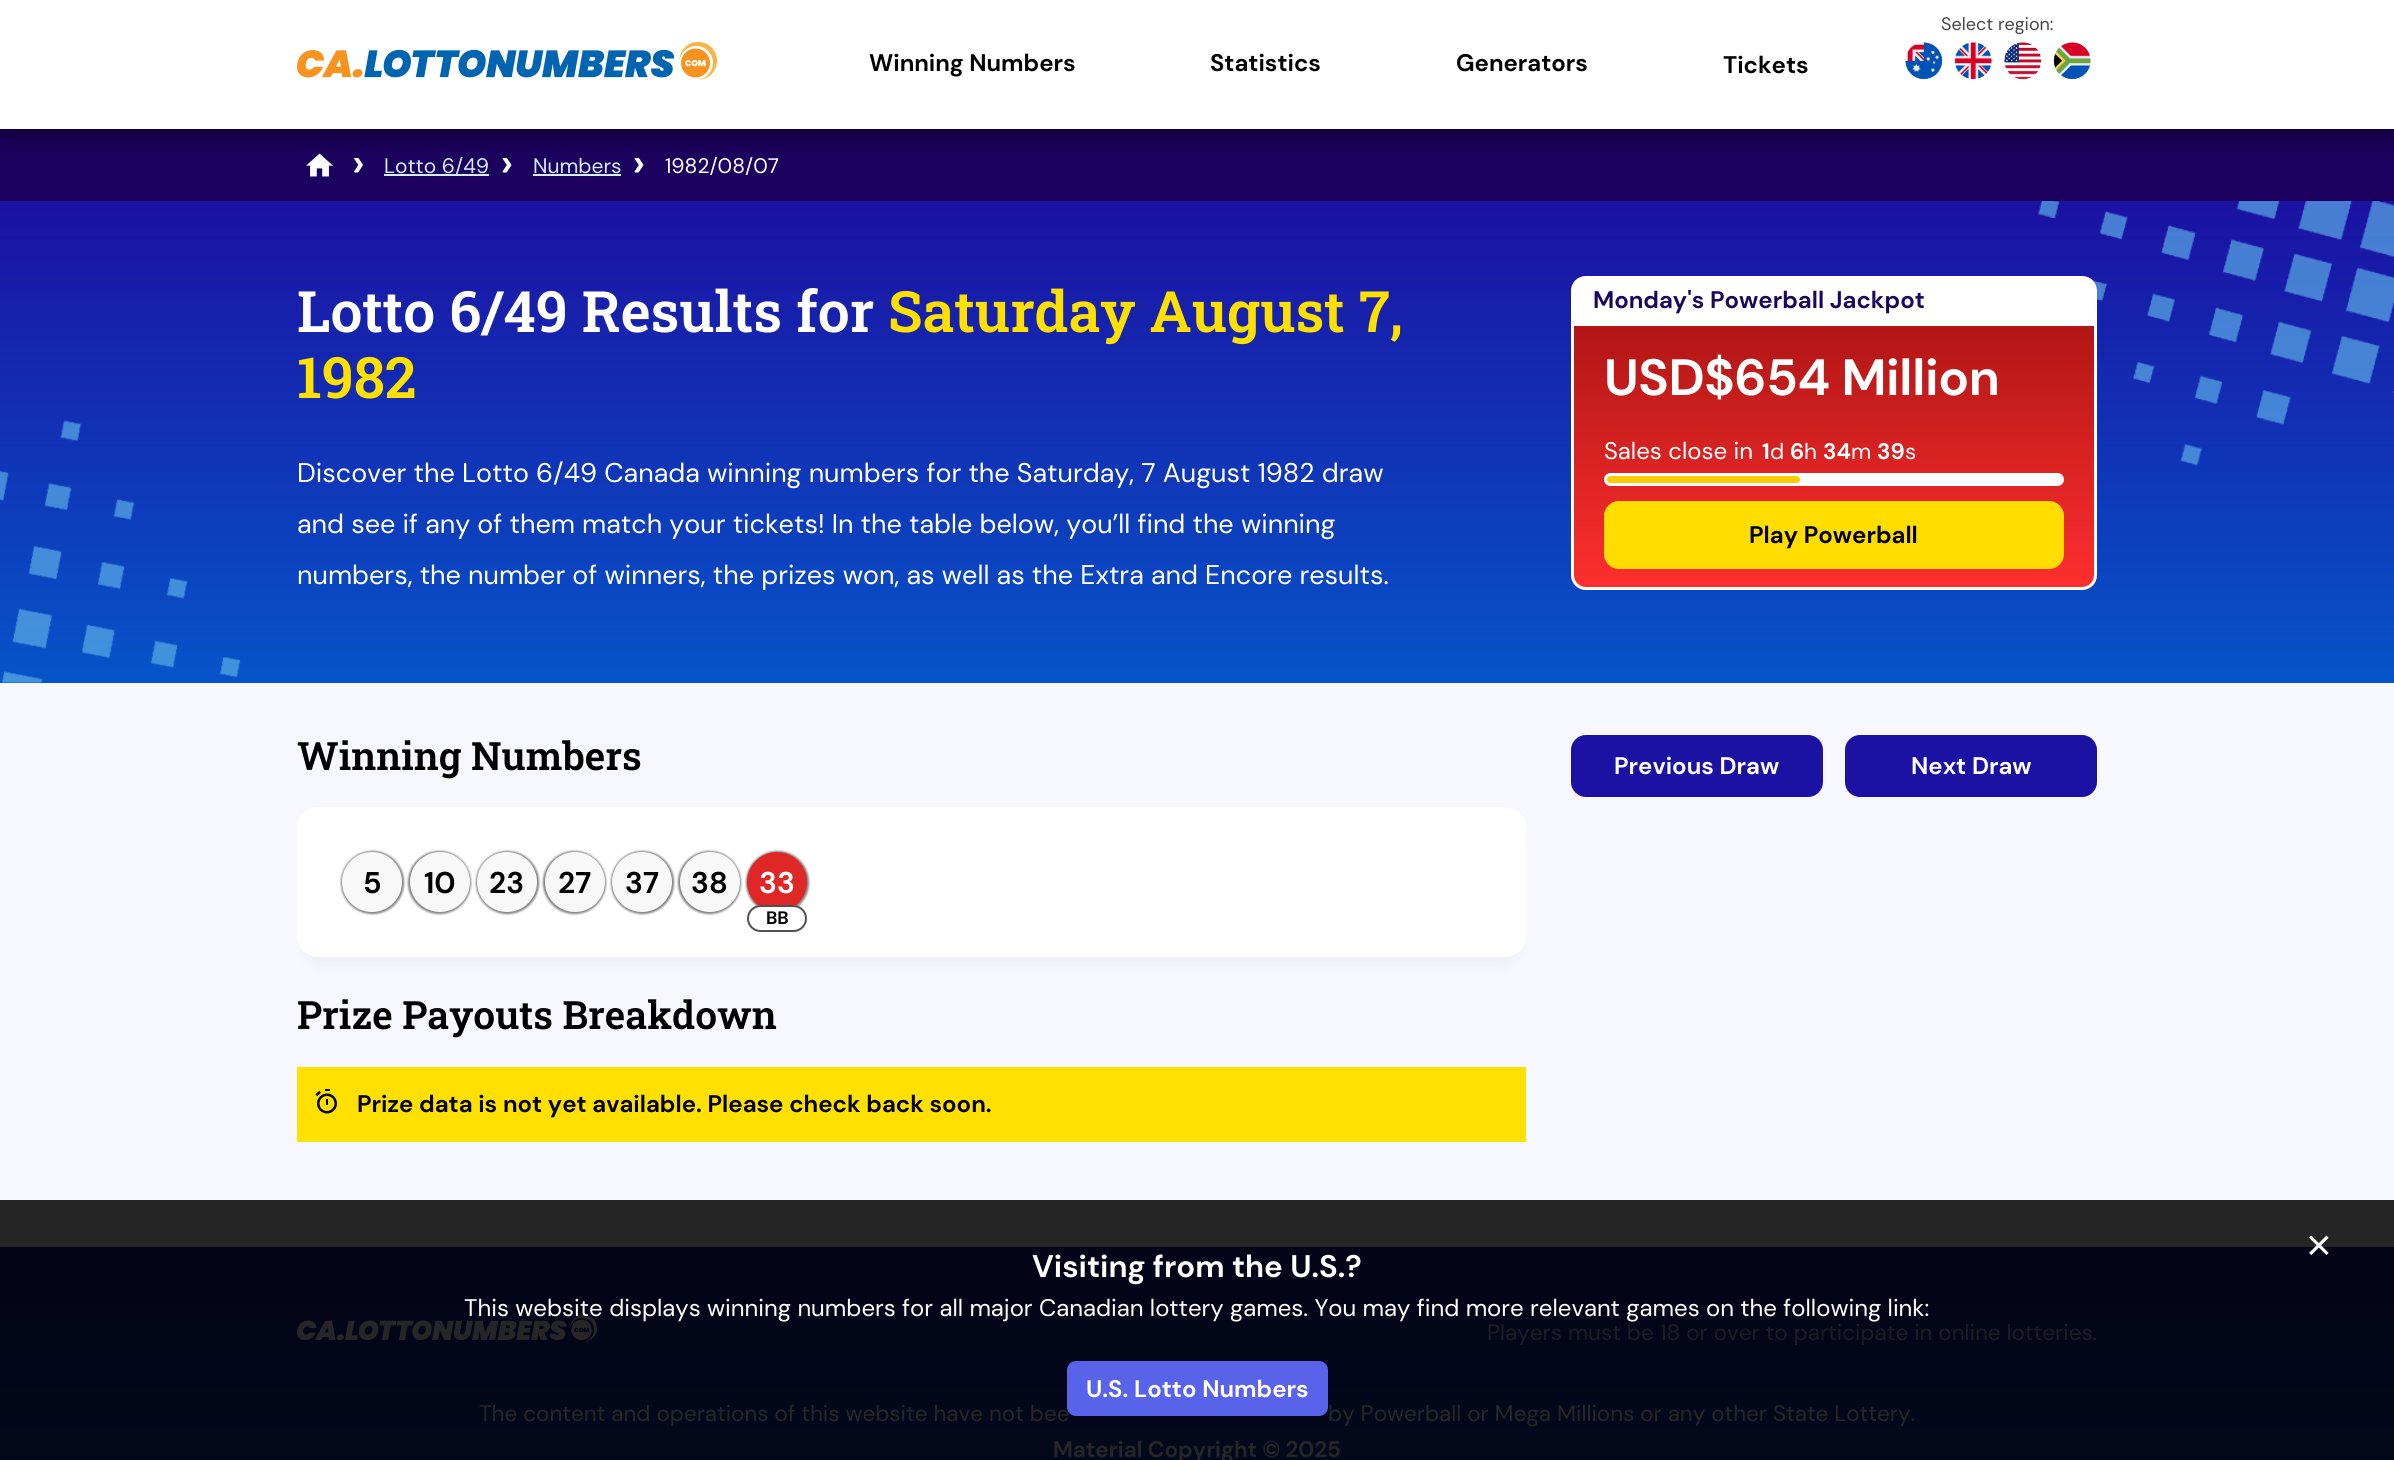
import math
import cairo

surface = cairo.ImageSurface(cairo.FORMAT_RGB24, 2394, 1460)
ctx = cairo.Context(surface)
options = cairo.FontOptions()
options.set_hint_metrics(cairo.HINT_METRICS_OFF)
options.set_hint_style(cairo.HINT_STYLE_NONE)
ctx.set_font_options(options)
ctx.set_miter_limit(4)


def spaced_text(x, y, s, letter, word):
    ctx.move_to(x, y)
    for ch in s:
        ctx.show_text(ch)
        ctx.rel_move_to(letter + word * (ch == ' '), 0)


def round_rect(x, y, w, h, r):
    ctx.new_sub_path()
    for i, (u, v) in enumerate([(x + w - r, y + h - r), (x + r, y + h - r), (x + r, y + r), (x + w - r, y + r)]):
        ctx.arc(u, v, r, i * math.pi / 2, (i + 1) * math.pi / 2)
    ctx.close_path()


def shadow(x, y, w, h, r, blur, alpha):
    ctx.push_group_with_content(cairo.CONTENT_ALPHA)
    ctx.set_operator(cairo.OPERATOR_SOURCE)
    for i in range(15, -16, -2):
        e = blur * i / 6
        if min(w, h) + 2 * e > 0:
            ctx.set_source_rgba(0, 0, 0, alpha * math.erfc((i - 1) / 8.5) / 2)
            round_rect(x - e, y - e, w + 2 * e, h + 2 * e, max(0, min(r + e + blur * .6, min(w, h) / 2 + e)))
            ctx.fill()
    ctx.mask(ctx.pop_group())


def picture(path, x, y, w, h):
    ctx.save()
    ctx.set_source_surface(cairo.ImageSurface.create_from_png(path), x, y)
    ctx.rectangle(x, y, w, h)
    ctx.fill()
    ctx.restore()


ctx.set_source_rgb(0.965, 0.969, 1)
ctx.paint()
ctx.set_source_rgb(0.145, 0.145, 0.149)
ctx.rectangle(0, 1200, 2394, 47)
ctx.fill()
ctx.set_source_rgb(0.11, 0, 0.376)
ctx.rectangle(0, 129, 2394, 72)
ctx.fill()
picture("img6.png", 306, 153, 27, 24)
picture("img7.png", 354, 158, 9, 15)
ctx.set_source_rgb(0.827, 0.929, 1)
ctx.rectangle(384, 174, 105, 2)
ctx.fill()
picture("img8.png", 502, 158, 10, 15)
ctx.rectangle(533, 174, 88, 2)
ctx.fill()
picture("img8.png", 634, 158, 10, 15)
ctx.set_source_rgb(0, 0, 0)
shadow(0, 6, 2394, 129, 0, 15, 0.45)
ctx.set_source_rgb(1, 1, 1)
ctx.rectangle(0, 0, 2394, 129)
ctx.fill()
picture("img1.png", 297, 41, 420, 39)
ctx.select_font_face("DM Sans")
ctx.set_font_size(18)
ctx.set_source_rgb(0.278, 0.278, 0.278)
ctx.move_to(1941, 30)
ctx.show_text("Select region:")
picture("img2.png", 1905, 42, 38, 38)
picture("img3.png", 1954, 42, 38, 38)
picture("img4.png", 2004, 42, 38, 38)
picture("img5.png", 2053, 42, 38, 38)
ctx.select_font_face("DM Sans", cairo.FONT_SLANT_NORMAL, cairo.FONT_WEIGHT_BOLD)
ctx.set_font_size(24)
ctx.set_source_rgb(0, 0, 0)
ctx.move_to(869, 71)
ctx.show_text("Winning Numbers")
ctx.move_to(1210, 71)
ctx.show_text("Statistics")
ctx.move_to(1456, 71)
ctx.show_text("Generators")
ctx.move_to(1723, 73)
ctx.show_text("Tickets")
ctx.select_font_face("DM Sans")
ctx.set_font_size(21)
ctx.set_source_rgb(0.827, 0.929, 1)
ctx.move_to(384, 173)
ctx.show_text("Lotto 6/49")
ctx.move_to(533, 173)
ctx.show_text("Numbers")
ctx.set_source_rgb(1, 1, 1)
ctx.move_to(665, 173)
ctx.show_text("1982/08/07")
gradient = cairo.LinearGradient(1197, 201, 1197, 683)
gradient.add_color_stop_rgba(0, 0.106, 0.067, 0.639, 1)
gradient.add_color_stop_rgba(1, 0.024, 0.329, 0.788, 1)
ctx.set_source(gradient)
ctx.rectangle(0, 201, 2394, 482)
ctx.fill()
picture("img9.png", 0, 420, 241, 263)
ctx.select_font_face("Roboto Slab SemiBold")
ctx.set_font_size(57)
ctx.set_source_rgb(1, 1, 1)
ctx.move_to(297, 332)
ctx.show_text("Lotto 6/49 Results for")
ctx.set_source_rgb(1, 0.878, 0)
ctx.move_to(888, 332)
ctx.show_text("Saturday August 7,")
ctx.move_to(297, 398)
ctx.show_text("1982")
ctx.select_font_face("DM Sans")
ctx.set_font_size(27)
ctx.set_source_rgb(1, 1, 1)
ctx.move_to(297, 482)
ctx.show_text("Discover the Lotto 6/49 Canada winning numbers for the Saturday, 7 August 1982 draw")
ctx.move_to(297, 533)
ctx.show_text("and see if any of them match your tickets! In the table below, you’ll find the winning")
ctx.move_to(297, 584)
ctx.show_text("numbers, the number of winners, the prizes won, as well as the Extra and Encore results.")
picture("img10.png", 2038, 201, 356, 265)
gradient = cairo.LinearGradient(1834, 276, 1834, 590)
gradient.add_color_stop_rgba(0, 0.639, 0.067, 0.067, 1)
gradient.add_color_stop_rgba(1, 1, 0.184, 0.184, 1)
ctx.set_source(gradient)
round_rect(1571, 276, 526, 314, 15)
ctx.fill()
ctx.set_source_rgb(1, 1, 1)
ctx.new_path()
ctx.move_to(1586, 276)
ctx.line_to(2082, 276)
ctx.curve_to(2090.5, 276, 2097, 282.5, 2097, 291)
ctx.line_to(2097, 323)
ctx.line_to(1571, 323)
ctx.line_to(1571, 291)
ctx.curve_to(1571, 282.5, 1577.5, 276, 1586, 276)
ctx.close_path()
ctx.fill()
ctx.select_font_face("DM Sans", cairo.FONT_SLANT_NORMAL, cairo.FONT_WEIGHT_BOLD)
ctx.set_font_size(24)
ctx.set_source_rgb(0.106, 0.027, 0.365)
ctx.move_to(1593, 308)
ctx.show_text("Monday's Powerball Jackpot")
ctx.new_path()
ctx.move_to(1572.5, 324.5)
ctx.line_to(2095.5, 324.5)
ctx.line_to(2095.5, 575)
ctx.curve_to(2095.5, 582.5, 2089.5, 588.5, 2082, 588.5)
ctx.line_to(1586, 588.5)
ctx.curve_to(1578.5, 588.5, 1572.5, 582.5, 1572.5, 575)
ctx.close_path()
ctx.set_source_rgb(1, 1, 1)
ctx.set_line_width(3)
ctx.stroke()
ctx.set_font_size(51)
spaced_text(1604, 395, "USD$654 Million", -0.4, 0)
ctx.select_font_face("DM Sans")
ctx.set_font_size(24)
ctx.move_to(1604, 459)
ctx.show_text("Sales close in")
ctx.select_font_face("DM Sans", cairo.FONT_SLANT_NORMAL, cairo.FONT_WEIGHT_BOLD)
ctx.set_font_size(22.5)
ctx.move_to(1762, 459)
ctx.show_text("1")
ctx.select_font_face("DM Sans")
ctx.move_to(1770, 459)
ctx.show_text("d")
ctx.select_font_face("DM Sans", cairo.FONT_SLANT_NORMAL, cairo.FONT_WEIGHT_BOLD)
ctx.move_to(1790, 459)
ctx.show_text("6")
ctx.select_font_face("DM Sans")
ctx.move_to(1804, 459)
ctx.show_text("h")
ctx.select_font_face("DM Sans", cairo.FONT_SLANT_NORMAL, cairo.FONT_WEIGHT_BOLD)
ctx.move_to(1823, 459)
ctx.show_text("34")
ctx.select_font_face("DM Sans")
ctx.move_to(1851, 459)
ctx.show_text("m")
ctx.select_font_face("DM Sans", cairo.FONT_SLANT_NORMAL, cairo.FONT_WEIGHT_BOLD)
ctx.move_to(1877, 459)
ctx.show_text("39")
ctx.select_font_face("DM Sans")
ctx.move_to(1905, 459)
ctx.show_text("s")
round_rect(1604, 473, 460, 13, 6.5)
ctx.fill()
ctx.set_source_rgb(1, 0.8, 0)
round_rect(1607, 476, 193, 7, 3.5)
ctx.fill()
ctx.set_source_rgb(1, 0.867, 0)
round_rect(1604, 501, 460, 68, 15)
ctx.fill()
ctx.select_font_face("DM Sans", cairo.FONT_SLANT_NORMAL, cairo.FONT_WEIGHT_BOLD)
ctx.set_font_size(24)
ctx.set_source_rgb(0, 0, 0)
ctx.move_to(1749, 543)
ctx.show_text("Play Powerball")
ctx.select_font_face("Roboto Slab SemiBold")
ctx.set_font_size(39)
ctx.move_to(297, 770)
ctx.show_text("Winning Numbers")
ctx.set_source_rgb(0, 0, 0)
shadow(305, 830, 1213, 135, 14, 7.5, 0.04)
ctx.set_source_rgb(1, 1, 1)
round_rect(297, 807, 1229, 150, 21)
ctx.fill()
ctx.set_source_rgb(0, 0, 0)
shadow(341, 851, 63, 63, 31.5, 1, 0.49)
ctx.set_source_rgb(0.969, 0.969, 0.969)
ctx.arc(372, 882, 30, 0, 2 * math.pi)
ctx.fill()
ctx.select_font_face("DM Sans", cairo.FONT_SLANT_NORMAL, cairo.FONT_WEIGHT_BOLD)
ctx.set_font_size(30)
ctx.set_source_rgb(0, 0, 0)
ctx.move_to(363, 893)
ctx.show_text("5")
ctx.set_source_rgb(0, 0, 0)
shadow(408, 851, 63, 63, 31.5, 1, 0.49)
ctx.set_source_rgb(0.969, 0.969, 0.969)
ctx.arc(440, 882, 30, 0, 2 * math.pi)
ctx.fill()
ctx.set_source_rgb(0, 0, 0)
ctx.move_to(424, 893)
ctx.show_text("10")
ctx.set_source_rgb(0, 0, 0)
shadow(476, 851, 63, 63, 31.5, 1, 0.49)
ctx.set_source_rgb(0.969, 0.969, 0.969)
ctx.arc(507, 882, 30, 0, 2 * math.pi)
ctx.fill()
ctx.set_source_rgb(0, 0, 0)
ctx.move_to(489, 893)
ctx.show_text("23")
ctx.set_source_rgb(0, 0, 0)
shadow(543, 851, 63, 63, 31.5, 1, 0.49)
ctx.set_source_rgb(0.969, 0.969, 0.969)
ctx.arc(575, 882, 30, 0, 2 * math.pi)
ctx.fill()
ctx.set_source_rgb(0, 0, 0)
ctx.move_to(558, 893)
ctx.show_text("27")
ctx.set_source_rgb(0, 0, 0)
shadow(611, 851, 63, 63, 31.5, 1, 0.49)
ctx.set_source_rgb(0.969, 0.969, 0.969)
ctx.arc(642, 882, 30, 0, 2 * math.pi)
ctx.fill()
ctx.set_source_rgb(0, 0, 0)
ctx.move_to(625, 893)
ctx.show_text("37")
ctx.set_source_rgb(0, 0, 0)
shadow(678, 851, 63, 63, 31.5, 1, 0.49)
ctx.set_source_rgb(0.969, 0.969, 0.969)
ctx.arc(710, 882, 30, 0, 2 * math.pi)
ctx.fill()
ctx.set_source_rgb(0, 0, 0)
ctx.move_to(691, 893)
ctx.show_text("38")
ctx.set_source_rgb(0, 0, 0)
shadow(746, 851, 63, 63, 31.5, 1, 0.49)
ctx.set_source_rgb(0.878, 0.153, 0.153)
ctx.arc(777, 882, 30, 0, 2 * math.pi)
ctx.fill()
ctx.set_source_rgb(1, 1, 1)
ctx.move_to(759, 893)
ctx.show_text("33")
round_rect(747, 905, 60, 27, 13.5)
ctx.fill()
round_rect(748, 906, 58, 25, 12.5)
ctx.set_source_rgba(0, 0, 0, 0.68)
ctx.set_line_width(2)
ctx.stroke()
ctx.set_font_size(18)
ctx.set_source_rgb(0, 0, 0)
ctx.move_to(766, 924)
ctx.show_text("BB")
ctx.select_font_face("Roboto Slab SemiBold")
ctx.set_font_size(39)
ctx.move_to(297, 1029)
ctx.show_text("Prize Payouts Breakdown")
ctx.set_source_rgb(1, 0.878, 0)
ctx.rectangle(297, 1067, 1229, 75)
ctx.fill()
picture("img11.png", 315, 1089, 22, 25)
ctx.select_font_face("DM Sans", cairo.FONT_SLANT_NORMAL, cairo.FONT_WEIGHT_BOLD)
ctx.set_font_size(24)
ctx.set_source_rgb(0, 0, 0)
ctx.move_to(357, 1112)
ctx.show_text("Prize data is not yet available. Please check back soon.")
ctx.set_source_rgb(0.106, 0.067, 0.639)
round_rect(1571, 735, 252, 62, 15)
ctx.fill()
ctx.set_source_rgb(1, 1, 1)
ctx.move_to(1614, 774)
ctx.show_text("Previous Draw")
ctx.set_source_rgb(0.106, 0.067, 0.639)
round_rect(1845, 735, 252, 62, 15)
ctx.fill()
ctx.set_source_rgb(1, 1, 1)
ctx.move_to(1911, 774)
ctx.show_text("Next Draw")
gradient = cairo.LinearGradient(1197, 1246, 1197, 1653)
gradient.add_color_stop_rgba(0, 0.016, 0.012, 0.094, 1)
gradient.add_color_stop_rgba(1, 0.004, 0.051, 0.118, 1)
ctx.set_source(gradient)
ctx.rectangle(0, 1247, 2394, 213)
ctx.fill()
picture("img12.png", 297, 1314, 300, 28)
ctx.select_font_face("DM Sans")
ctx.set_font_size(22.5)
ctx.set_source_rgb(0.106, 0.11, 0.149)
ctx.move_to(1487, 1340)
ctx.show_text("Players must be 18 or over to participate in online lotteries.")
ctx.set_source_rgb(0.149, 0.149, 0.149)
ctx.move_to(479, 1421)
ctx.show_text("The content and operations of this website have not bee")
ctx.move_to(1328, 1421)
ctx.show_text("by Powerball or Mega Millions or any other State Lottery.")
ctx.select_font_face("DM Sans", cairo.FONT_SLANT_NORMAL, cairo.FONT_WEIGHT_BOLD)
ctx.move_to(1053, 1457)
ctx.show_text("Material Copyright © 2025")
ctx.select_font_face("Liberation Sans")
ctx.set_font_size(44)
ctx.set_source_rgb(1, 1, 1)
ctx.move_to(2306, 1260)
ctx.show_text("×")
ctx.select_font_face("DM Sans", cairo.FONT_SLANT_NORMAL, cairo.FONT_WEIGHT_BOLD)
ctx.set_font_size(31.25)
ctx.move_to(1032, 1277)
ctx.show_text("Visiting from the U.S.?")
ctx.select_font_face("DM Sans")
ctx.set_font_size(24)
ctx.move_to(464, 1316)
ctx.show_text("This website displays winning numbers for all major Canadian lottery games. You may find more relevant games on the following link:")
ctx.set_source_rgb(0.349, 0.388, 0.914)
round_rect(1067, 1361, 261, 55, 9)
ctx.fill()
ctx.select_font_face("DM Sans", cairo.FONT_SLANT_NORMAL, cairo.FONT_WEIGHT_BOLD)
ctx.set_source_rgb(1, 1, 1)
ctx.move_to(1086, 1397)
ctx.show_text("U.S. Lotto Numbers")
surface.write_to_png("page.png")
